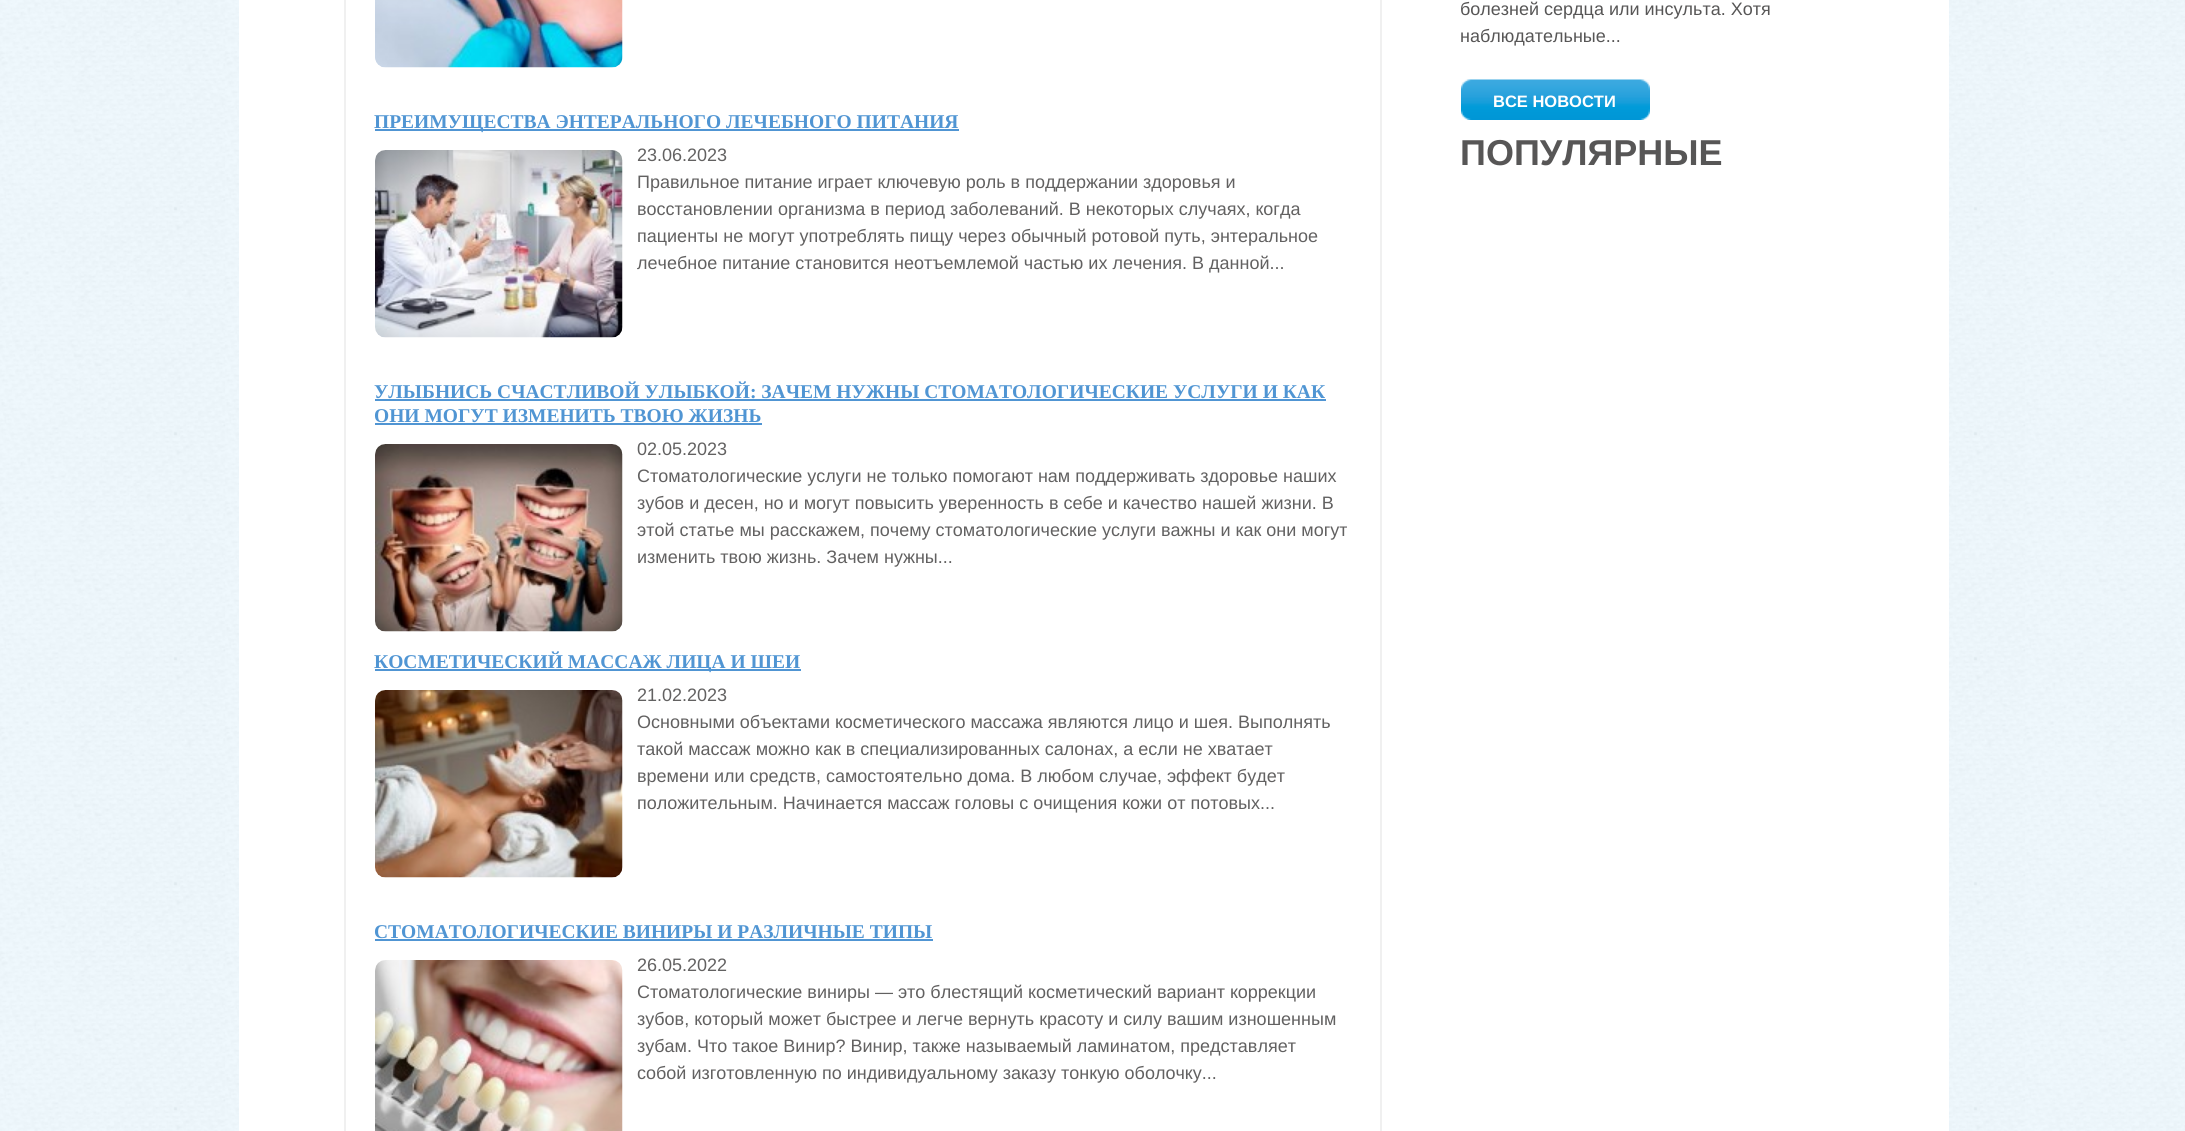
import math
import cairo

surface = cairo.ImageSurface(cairo.FORMAT_RGB24, 2185, 1131)
ctx = cairo.Context(surface)
options = cairo.FontOptions()
options.set_hint_metrics(cairo.HINT_METRICS_OFF)
options.set_hint_style(cairo.HINT_STYLE_NONE)
ctx.set_font_options(options)
ctx.set_miter_limit(4)


def picture(path, x, y, w, h):
    ctx.save()
    ctx.set_source_surface(cairo.ImageSurface.create_from_png(path), x, y)
    ctx.rectangle(x, y, w, h)
    ctx.fill()
    ctx.restore()


ctx.set_source_rgb(1, 1, 1)
ctx.paint()
picture("img1.png", 0, 0, 2185, 1131)
ctx.set_source_rgb(1, 1, 1)
ctx.rectangle(239, 0, 1710, 1131)
ctx.fill()
ctx.select_font_face("Liberation Sans")
ctx.set_font_size(18)
ctx.set_source_rgb(0.341, 0.337, 0.337)
ctx.move_to(1460, 15)
ctx.show_text("болезней сердца или инсульта. Хотя")
ctx.move_to(1460, 42)
ctx.show_text("наблюдательные...")
picture("img2.png", 1461, 79, 189, 41)
ctx.select_font_face("Liberation Sans", cairo.FONT_SLANT_NORMAL, cairo.FONT_WEIGHT_BOLD)
ctx.set_font_size(16.5)
ctx.set_source_rgb(1, 1, 1)
ctx.move_to(1493, 107)
ctx.show_text("ВСЕ НОВОСТИ")
ctx.set_font_size(36)
ctx.set_source_rgb(0.341, 0.337, 0.337)
ctx.move_to(1460, 165)
ctx.show_text("ПОПУЛЯРНЫЕ")
ctx.rectangle(345, -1, 1036, 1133)
ctx.set_source_rgb(0.941, 0.941, 0.941)
ctx.stroke()
picture("img3.png", 375, 0, 248, 68)
ctx.set_source_rgb(0.314, 0.584, 0.827)
ctx.rectangle(375, 129, 584, 2)
ctx.fill()
ctx.select_font_face("Liberation Serif", cairo.FONT_SLANT_NORMAL, cairo.FONT_WEIGHT_BOLD)
ctx.set_font_size(19.5)
ctx.move_to(374, 128)
ctx.show_text("ПРЕИМУЩЕСТВА ЭНТЕРАЛЬНОГО ЛЕЧЕБНОГО ПИТАНИЯ")
picture("img4.png", 375, 150, 248, 188)
ctx.select_font_face("Liberation Sans")
ctx.set_font_size(18)
ctx.set_source_rgb(0.384, 0.38, 0.38)
ctx.move_to(637, 161)
ctx.show_text("23.06.2023")
ctx.move_to(637, 188)
ctx.show_text("Правильное питание играет ключевую роль в поддержании здоровья и")
ctx.move_to(637, 215)
ctx.show_text("восстановлении организма в период заболеваний. В некоторых случаях, когда")
ctx.move_to(637, 242)
ctx.show_text("пациенты не могут употреблять пищу через обычный ротовой путь, энтеральное")
ctx.move_to(637, 269)
ctx.show_text("лечебное питание становится неотъемлемой частью их лечения. В данной...")
ctx.select_font_face("Liberation Serif", cairo.FONT_SLANT_NORMAL, cairo.FONT_WEIGHT_BOLD)
ctx.set_font_size(19.5)
ctx.set_source_rgb(0.314, 0.584, 0.827)
ctx.move_to(374, 398)
ctx.show_text("УЛЫБНИСЬ СЧАСТЛИВОЙ УЛЫБКОЙ: ЗАЧЕМ НУЖНЫ СТОМАТОЛОГИЧЕСКИЕ УСЛУГИ И КАК")
ctx.rectangle(375, 399, 951, 2)
ctx.fill()
ctx.move_to(374, 422)
ctx.show_text("ОНИ МОГУТ ИЗМЕНИТЬ ТВОЮ ЖИЗНЬ")
ctx.rectangle(375, 423, 387, 2)
ctx.fill()
picture("img5.png", 375, 444, 248, 188)
ctx.select_font_face("Liberation Sans")
ctx.set_font_size(18)
ctx.set_source_rgb(0.384, 0.38, 0.38)
ctx.move_to(637, 455)
ctx.show_text("02.05.2023")
ctx.move_to(637, 482)
ctx.show_text("Стоматологические услуги не только помогают нам поддерживать здоровье наших")
ctx.move_to(637, 509)
ctx.show_text("зубов и десен, но и могут повысить уверенность в себе и качество нашей жизни. В")
ctx.move_to(637, 536)
ctx.show_text("этой статье мы расскажем, почему стоматологические услуги важны и как они могут")
ctx.move_to(637, 563)
ctx.show_text("изменить твою жизнь. Зачем нужны...")
ctx.set_source_rgb(0.314, 0.584, 0.827)
ctx.rectangle(375, 669, 426, 2)
ctx.fill()
ctx.select_font_face("Liberation Serif", cairo.FONT_SLANT_NORMAL, cairo.FONT_WEIGHT_BOLD)
ctx.set_font_size(19.5)
ctx.move_to(374, 668)
ctx.show_text("КОСМЕТИЧЕСКИЙ МАССАЖ ЛИЦА И ШЕИ")
picture("img6.png", 375, 690, 248, 188)
ctx.select_font_face("Liberation Sans")
ctx.set_font_size(18)
ctx.set_source_rgb(0.384, 0.38, 0.38)
ctx.move_to(637, 701)
ctx.show_text("21.02.2023")
ctx.move_to(637, 728)
ctx.show_text("Основными объектами косметического массажа являются лицо и шея. Выполнять")
ctx.move_to(637, 755)
ctx.show_text("такой массаж можно как в специализированных салонах, а если не хватает")
ctx.move_to(637, 782)
ctx.show_text("времени или средств, самостоятельно дома. В любом случае, эффект будет")
ctx.move_to(637, 809)
ctx.show_text("положительным. Начинается массаж головы с очищения кожи от потовых...")
ctx.select_font_face("Liberation Serif", cairo.FONT_SLANT_NORMAL, cairo.FONT_WEIGHT_BOLD)
ctx.set_font_size(19.5)
ctx.set_source_rgb(0.314, 0.584, 0.827)
ctx.move_to(374, 938)
ctx.show_text("СТОМАТОЛОГИЧЕСКИЕ ВИНИРЫ И РАЗЛИЧНЫЕ ТИПЫ")
ctx.rectangle(375, 939, 558, 2)
ctx.fill()
picture("img7.png", 375, 960, 248, 171)
ctx.select_font_face("Liberation Sans")
ctx.set_font_size(18)
ctx.set_source_rgb(0.384, 0.38, 0.38)
ctx.move_to(637, 971)
ctx.show_text("26.05.2022")
ctx.move_to(637, 998)
ctx.show_text("Стоматологические виниры — это блестящий косметический вариант коррекции")
ctx.move_to(637, 1025)
ctx.show_text("зубов, который может быстрее и легче вернуть красоту и силу вашим изношенным")
ctx.move_to(637, 1052)
ctx.show_text("зубам. Что такое Винир? Винир, также называемый ламинатом, представляет")
ctx.move_to(637, 1079)
ctx.show_text("собой изготовленную по индивидуальному заказу тонкую оболочку...")
surface.write_to_png("page.png")
